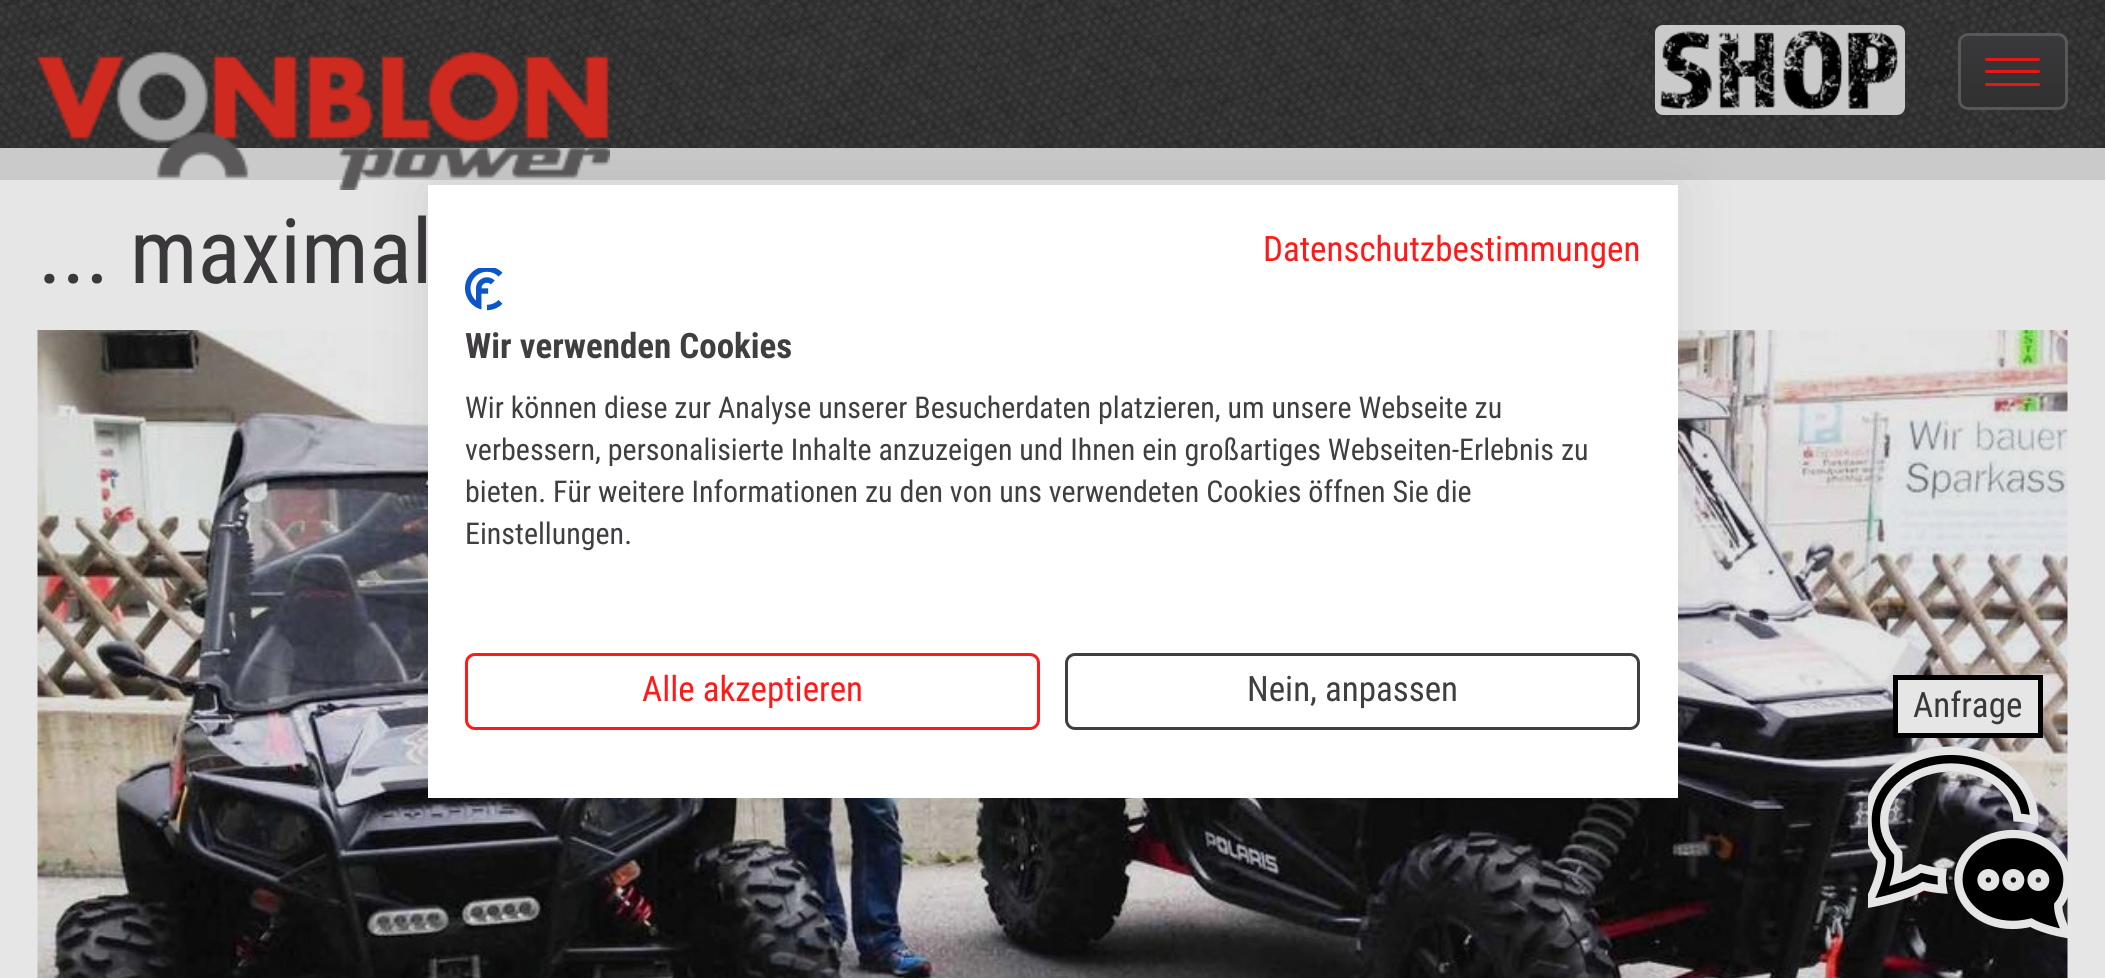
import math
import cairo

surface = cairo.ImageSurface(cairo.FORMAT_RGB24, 2105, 978)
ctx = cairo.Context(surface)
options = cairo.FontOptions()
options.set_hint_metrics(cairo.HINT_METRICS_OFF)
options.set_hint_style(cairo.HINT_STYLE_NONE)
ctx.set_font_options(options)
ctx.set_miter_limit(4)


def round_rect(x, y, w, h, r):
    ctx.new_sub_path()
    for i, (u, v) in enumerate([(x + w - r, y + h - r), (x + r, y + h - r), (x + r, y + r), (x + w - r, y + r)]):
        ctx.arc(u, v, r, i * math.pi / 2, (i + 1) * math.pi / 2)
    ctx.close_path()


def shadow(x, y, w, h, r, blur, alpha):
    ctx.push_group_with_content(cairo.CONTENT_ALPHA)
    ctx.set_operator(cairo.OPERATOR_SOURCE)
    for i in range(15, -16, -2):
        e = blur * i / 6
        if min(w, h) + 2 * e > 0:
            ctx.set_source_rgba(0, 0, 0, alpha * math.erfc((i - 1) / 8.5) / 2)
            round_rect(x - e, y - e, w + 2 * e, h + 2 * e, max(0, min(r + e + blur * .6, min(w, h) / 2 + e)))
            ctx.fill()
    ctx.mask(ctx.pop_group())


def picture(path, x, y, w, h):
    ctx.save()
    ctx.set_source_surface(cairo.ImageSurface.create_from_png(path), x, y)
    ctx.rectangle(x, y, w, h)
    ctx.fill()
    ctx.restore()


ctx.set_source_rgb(0.902, 0.902, 0.902)
ctx.paint()
picture("img1.png", 0, 0, 2105, 148)
ctx.set_source_rgb(0.792, 0.792, 0.792)
ctx.rectangle(0, 148, 2105, 32)
ctx.fill()
picture("img2.png", 37, 51, 573, 139)
round_rect(1655, 25, 250, 90, 8)
ctx.fill()
picture("img3.png", 1660, 30, 238, 80)
ctx.save()
round_rect(1958, 33, 110, 77, 10)
ctx.clip()
gradient = cairo.LinearGradient(2013, 35, 2013, 108)
gradient.add_color_stop_rgba(0, 0.227, 0.22, 0.231, 1)
gradient.add_color_stop_rgba(1, 0.188, 0.188, 0.188, 1)
ctx.set_source(gradient)
ctx.rectangle(1958, 35, 110, 73)
ctx.fill()
ctx.restore()
round_rect(1959.5, 34.5, 107, 74, 8.5)
ctx.set_source_rgb(0.341, 0.345, 0.341)
ctx.set_line_width(3)
ctx.stroke()
ctx.set_source_rgb(0.902, 0.09, 0.09)
round_rect(1985, 58, 55, 3, 1.5)
ctx.fill()
round_rect(1985, 70, 55, 3, 1.5)
ctx.fill()
round_rect(1985, 83, 55, 3, 1.5)
ctx.fill()
ctx.select_font_face("Roboto Condensed")
ctx.set_font_size(90)
ctx.set_source_rgb(0.227, 0.22, 0.231)
ctx.move_to(38, 283)
ctx.show_text("... maximal")
picture("img4.png", 37, 330, 2031, 648)
ctx.set_source_rgb(0, 0, 0)
shadow(428, 185, 1250, 613, 0, 30, 0.1)
ctx.set_source_rgb(1, 1, 1)
ctx.rectangle(428, 185, 1250, 613)
ctx.fill()
ctx.set_font_size(35)
ctx.set_source_rgb(1, 0.098, 0.098)
ctx.move_to(1263, 261)
ctx.show_text("Datenschutzbestimmungen")
picture("img5.png", 465, 268, 38, 43)
ctx.select_font_face("Roboto Condensed", cairo.FONT_SLANT_NORMAL, cairo.FONT_WEIGHT_BOLD)
ctx.set_source_rgb(0.251, 0.243, 0.255)
ctx.move_to(465, 358)
ctx.show_text("Wir verwenden Cookies")
ctx.select_font_face("Roboto Condensed")
ctx.set_font_size(30)
ctx.move_to(465, 418)
ctx.show_text("Wir können diese zur Analyse unserer Besucherdaten platzieren, um unsere Webseite zu")
ctx.move_to(465, 460)
ctx.show_text("verbessern, personalisierte Inhalte anzuzeigen und Ihnen ein großartiges Webseiten-Erlebnis zu")
ctx.move_to(465, 502)
ctx.show_text("bieten. Für weitere Informationen zu den von uns verwendeten Cookies öffnen Sie die")
ctx.move_to(465, 544)
ctx.show_text("Einstellungen.")
round_rect(466.5, 654.5, 572, 74, 8.5)
ctx.set_source_rgb(1, 0.098, 0.098)
ctx.stroke()
ctx.set_font_size(35)
ctx.move_to(642, 701)
ctx.show_text("Alle akzeptieren")
round_rect(1066.5, 654.5, 572, 74, 8.5)
ctx.set_source_rgb(0.251, 0.243, 0.255)
ctx.stroke()
ctx.move_to(1247, 701)
ctx.show_text("Nein, anpassen")
ctx.set_source_rgb(0.902, 0.902, 0.902)
ctx.rectangle(1895.5, 677.5, 145, 58)
ctx.fill_preserve()
ctx.set_source_rgb(0, 0, 0)
ctx.set_line_width(5)
ctx.stroke()
ctx.set_source_rgb(0.227, 0.22, 0.231)
ctx.move_to(1913, 717)
ctx.show_text("Anfrage")
picture("img6.png", 1868, 746, 200, 193)
surface.write_to_png("page.png")
